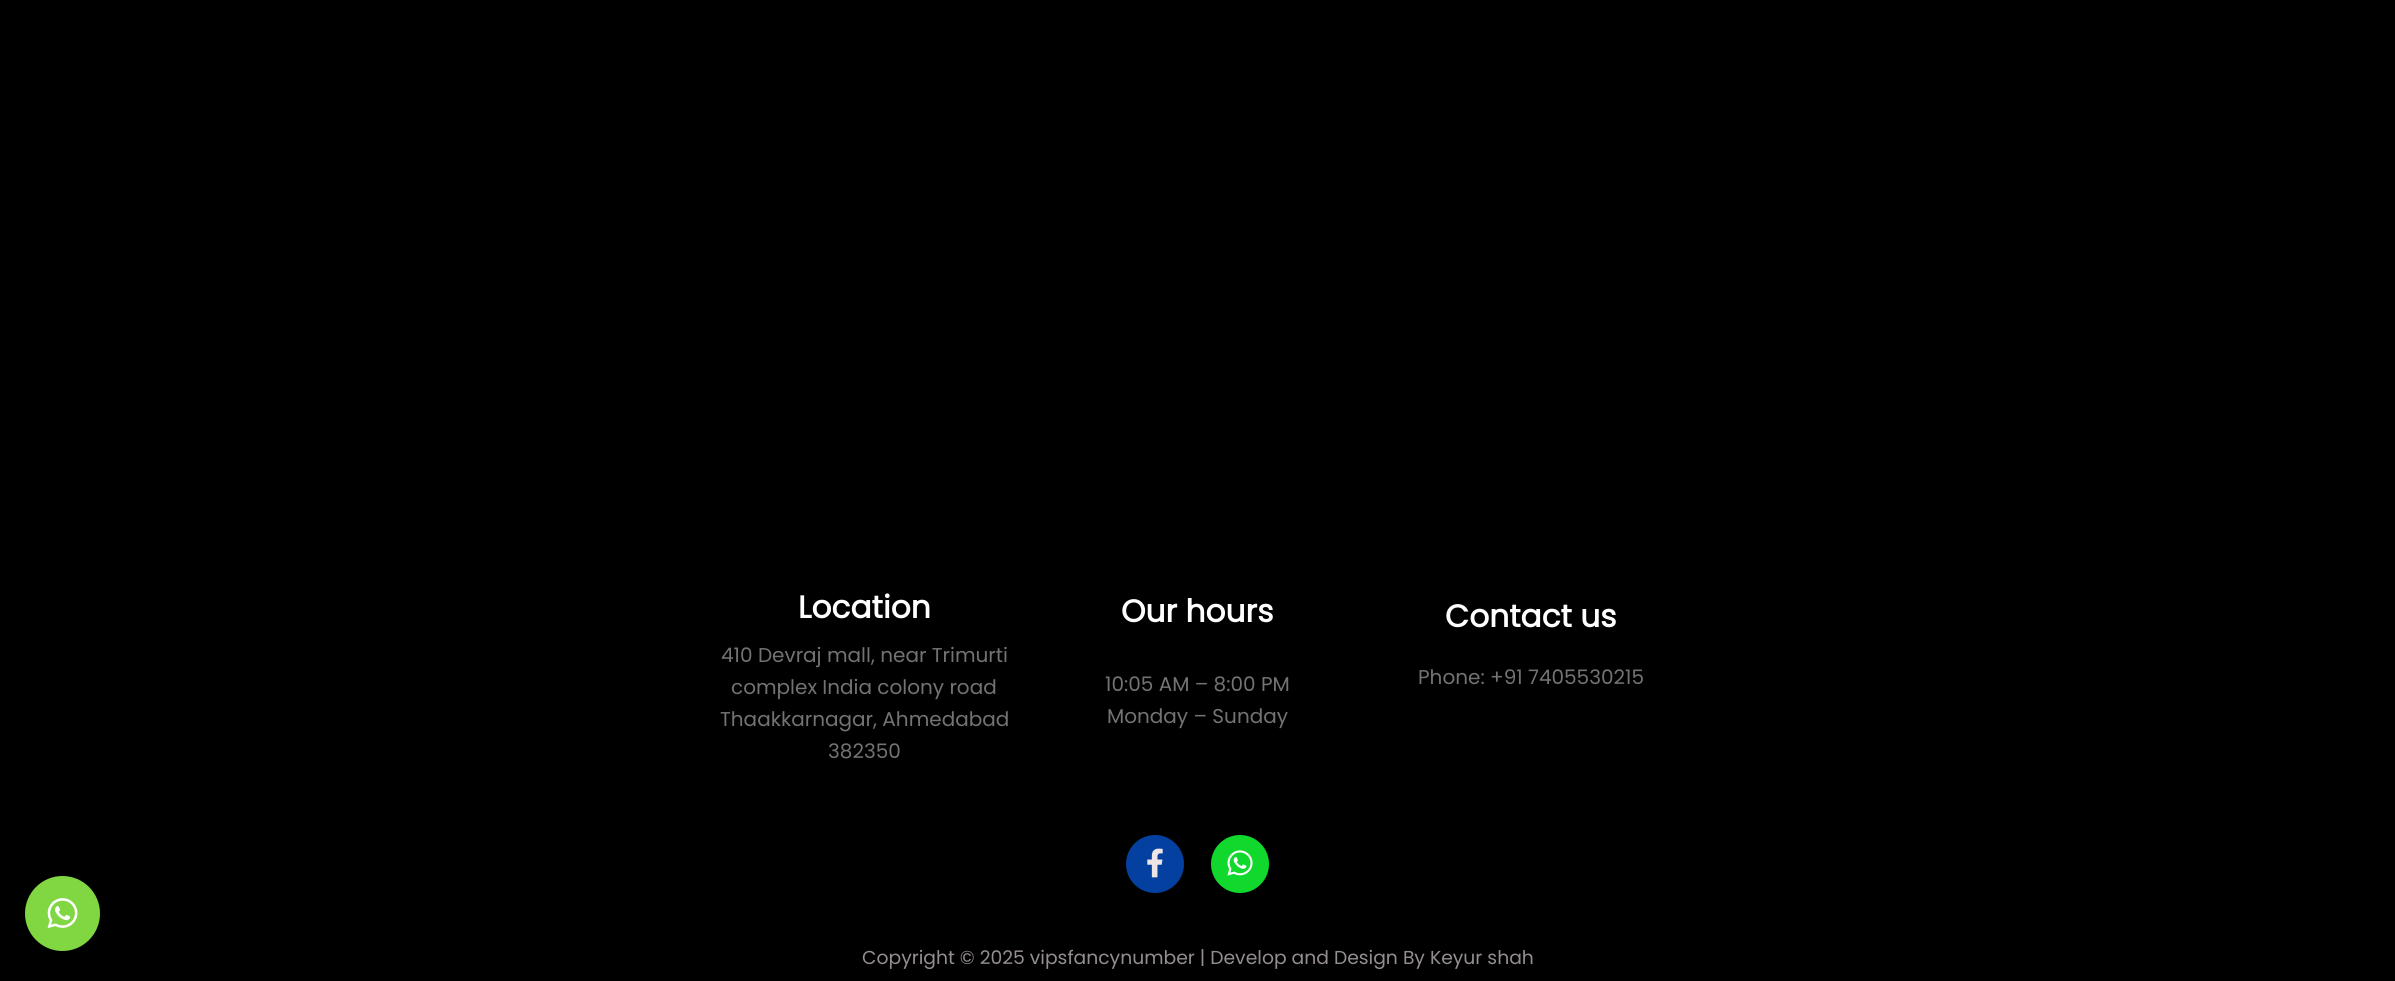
import math
import cairo

surface = cairo.ImageSurface(cairo.FORMAT_RGB24, 2395, 981)
ctx = cairo.Context(surface)
options = cairo.FontOptions()
options.set_hint_metrics(cairo.HINT_METRICS_OFF)
options.set_hint_style(cairo.HINT_STYLE_NONE)
ctx.set_font_options(options)
ctx.set_miter_limit(4)


def picture(path, x, y, w, h):
    ctx.save()
    ctx.set_source_surface(cairo.ImageSurface.create_from_png(path), x, y)
    ctx.rectangle(x, y, w, h)
    ctx.fill()
    ctx.restore()


ctx.set_source_rgb(0, 0, 0)
ctx.paint()
ctx.set_source_rgb(0.506, 0.843, 0.259)
ctx.arc(62.5, 913.5, 37.5, 0, 2 * math.pi)
ctx.fill()
picture("img1.png", 47, 898, 31, 31)
ctx.select_font_face("Poppins", cairo.FONT_SLANT_NORMAL, cairo.FONT_WEIGHT_BOLD)
ctx.set_font_size(31.25)
ctx.set_source_rgb(1, 1, 1)
ctx.move_to(798, 618)
ctx.show_text("Location")
ctx.select_font_face("Poppins")
ctx.set_font_size(20)
ctx.set_source_rgb(0.451, 0.451, 0.451)
ctx.move_to(721, 662)
ctx.show_text("410 Devraj mall, near Trimurti")
ctx.move_to(731, 694)
ctx.show_text("complex India colony road")
ctx.move_to(720, 726)
ctx.show_text("Thaakkarnagar, Ahmedabad")
ctx.move_to(828, 758)
ctx.show_text("382350")
ctx.select_font_face("Poppins", cairo.FONT_SLANT_NORMAL, cairo.FONT_WEIGHT_BOLD)
ctx.set_font_size(31.25)
ctx.set_source_rgb(1, 1, 1)
ctx.move_to(1121, 622)
ctx.show_text("Our hours")
ctx.select_font_face("Poppins")
ctx.set_font_size(20)
ctx.set_source_rgb(0.451, 0.451, 0.451)
ctx.move_to(1105, 691)
ctx.show_text("10:05 AM – 8:00 PM")
ctx.move_to(1107, 723)
ctx.show_text("Monday – Sunday")
ctx.select_font_face("Poppins", cairo.FONT_SLANT_NORMAL, cairo.FONT_WEIGHT_BOLD)
ctx.set_font_size(31.25)
ctx.set_source_rgb(1, 1, 1)
ctx.move_to(1445, 627)
ctx.show_text("Contact us")
ctx.select_font_face("Poppins")
ctx.set_font_size(20)
ctx.set_source_rgb(0.451, 0.451, 0.451)
ctx.move_to(1418, 684)
ctx.show_text("Phone: +91 7405530215")
ctx.set_source_rgb(0.016, 0.251, 0.624)
ctx.new_path()
ctx.arc(1155, 864, 29, 0, 2 * math.pi)
ctx.fill()
picture("img2.png", 1147, 848, 16, 30)
ctx.set_source_rgb(0.067, 0.847, 0.176)
ctx.arc(1240, 864, 29, 0, 2 * math.pi)
ctx.fill()
picture("img3.png", 1227, 850, 26, 26)
ctx.set_font_size(18.75)
ctx.set_source_rgb(0.584, 0.557, 0.557)
ctx.move_to(862, 964)
ctx.show_text("Copyright © 2025 vipsfancynumber | Develop and Design By Keyur shah")
surface.write_to_png("page.png")
